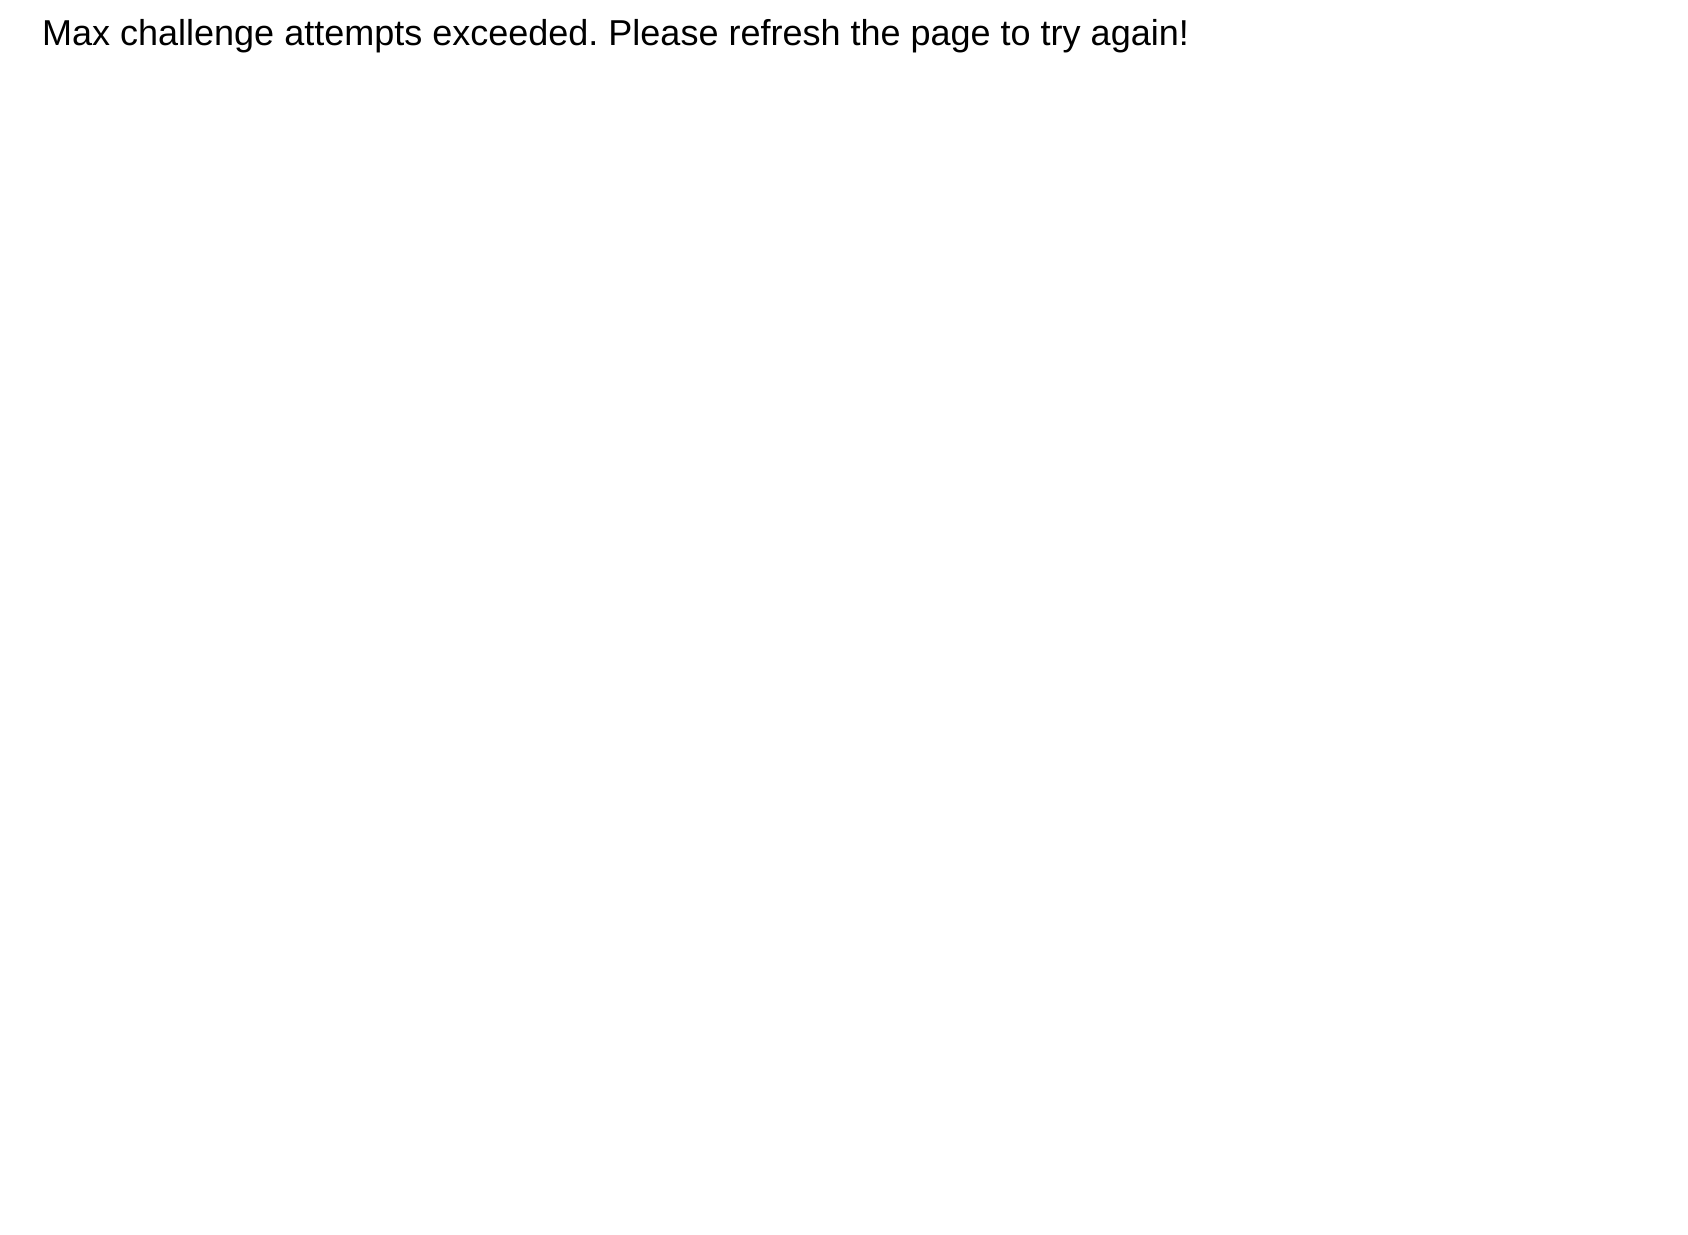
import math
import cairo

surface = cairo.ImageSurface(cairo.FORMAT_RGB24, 1688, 1235)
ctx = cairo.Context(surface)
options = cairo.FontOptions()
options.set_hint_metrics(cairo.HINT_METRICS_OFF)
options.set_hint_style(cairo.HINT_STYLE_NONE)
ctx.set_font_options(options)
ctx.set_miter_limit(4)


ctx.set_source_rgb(1, 1, 1)
ctx.paint()
ctx.select_font_face("Liberation Sans")
ctx.set_font_size(36)
ctx.set_source_rgb(0, 0, 0)
ctx.move_to(42, 45)
ctx.show_text("Max challenge attempts exceeded. Please refresh the page to try again!")
surface.write_to_png("page.png")
